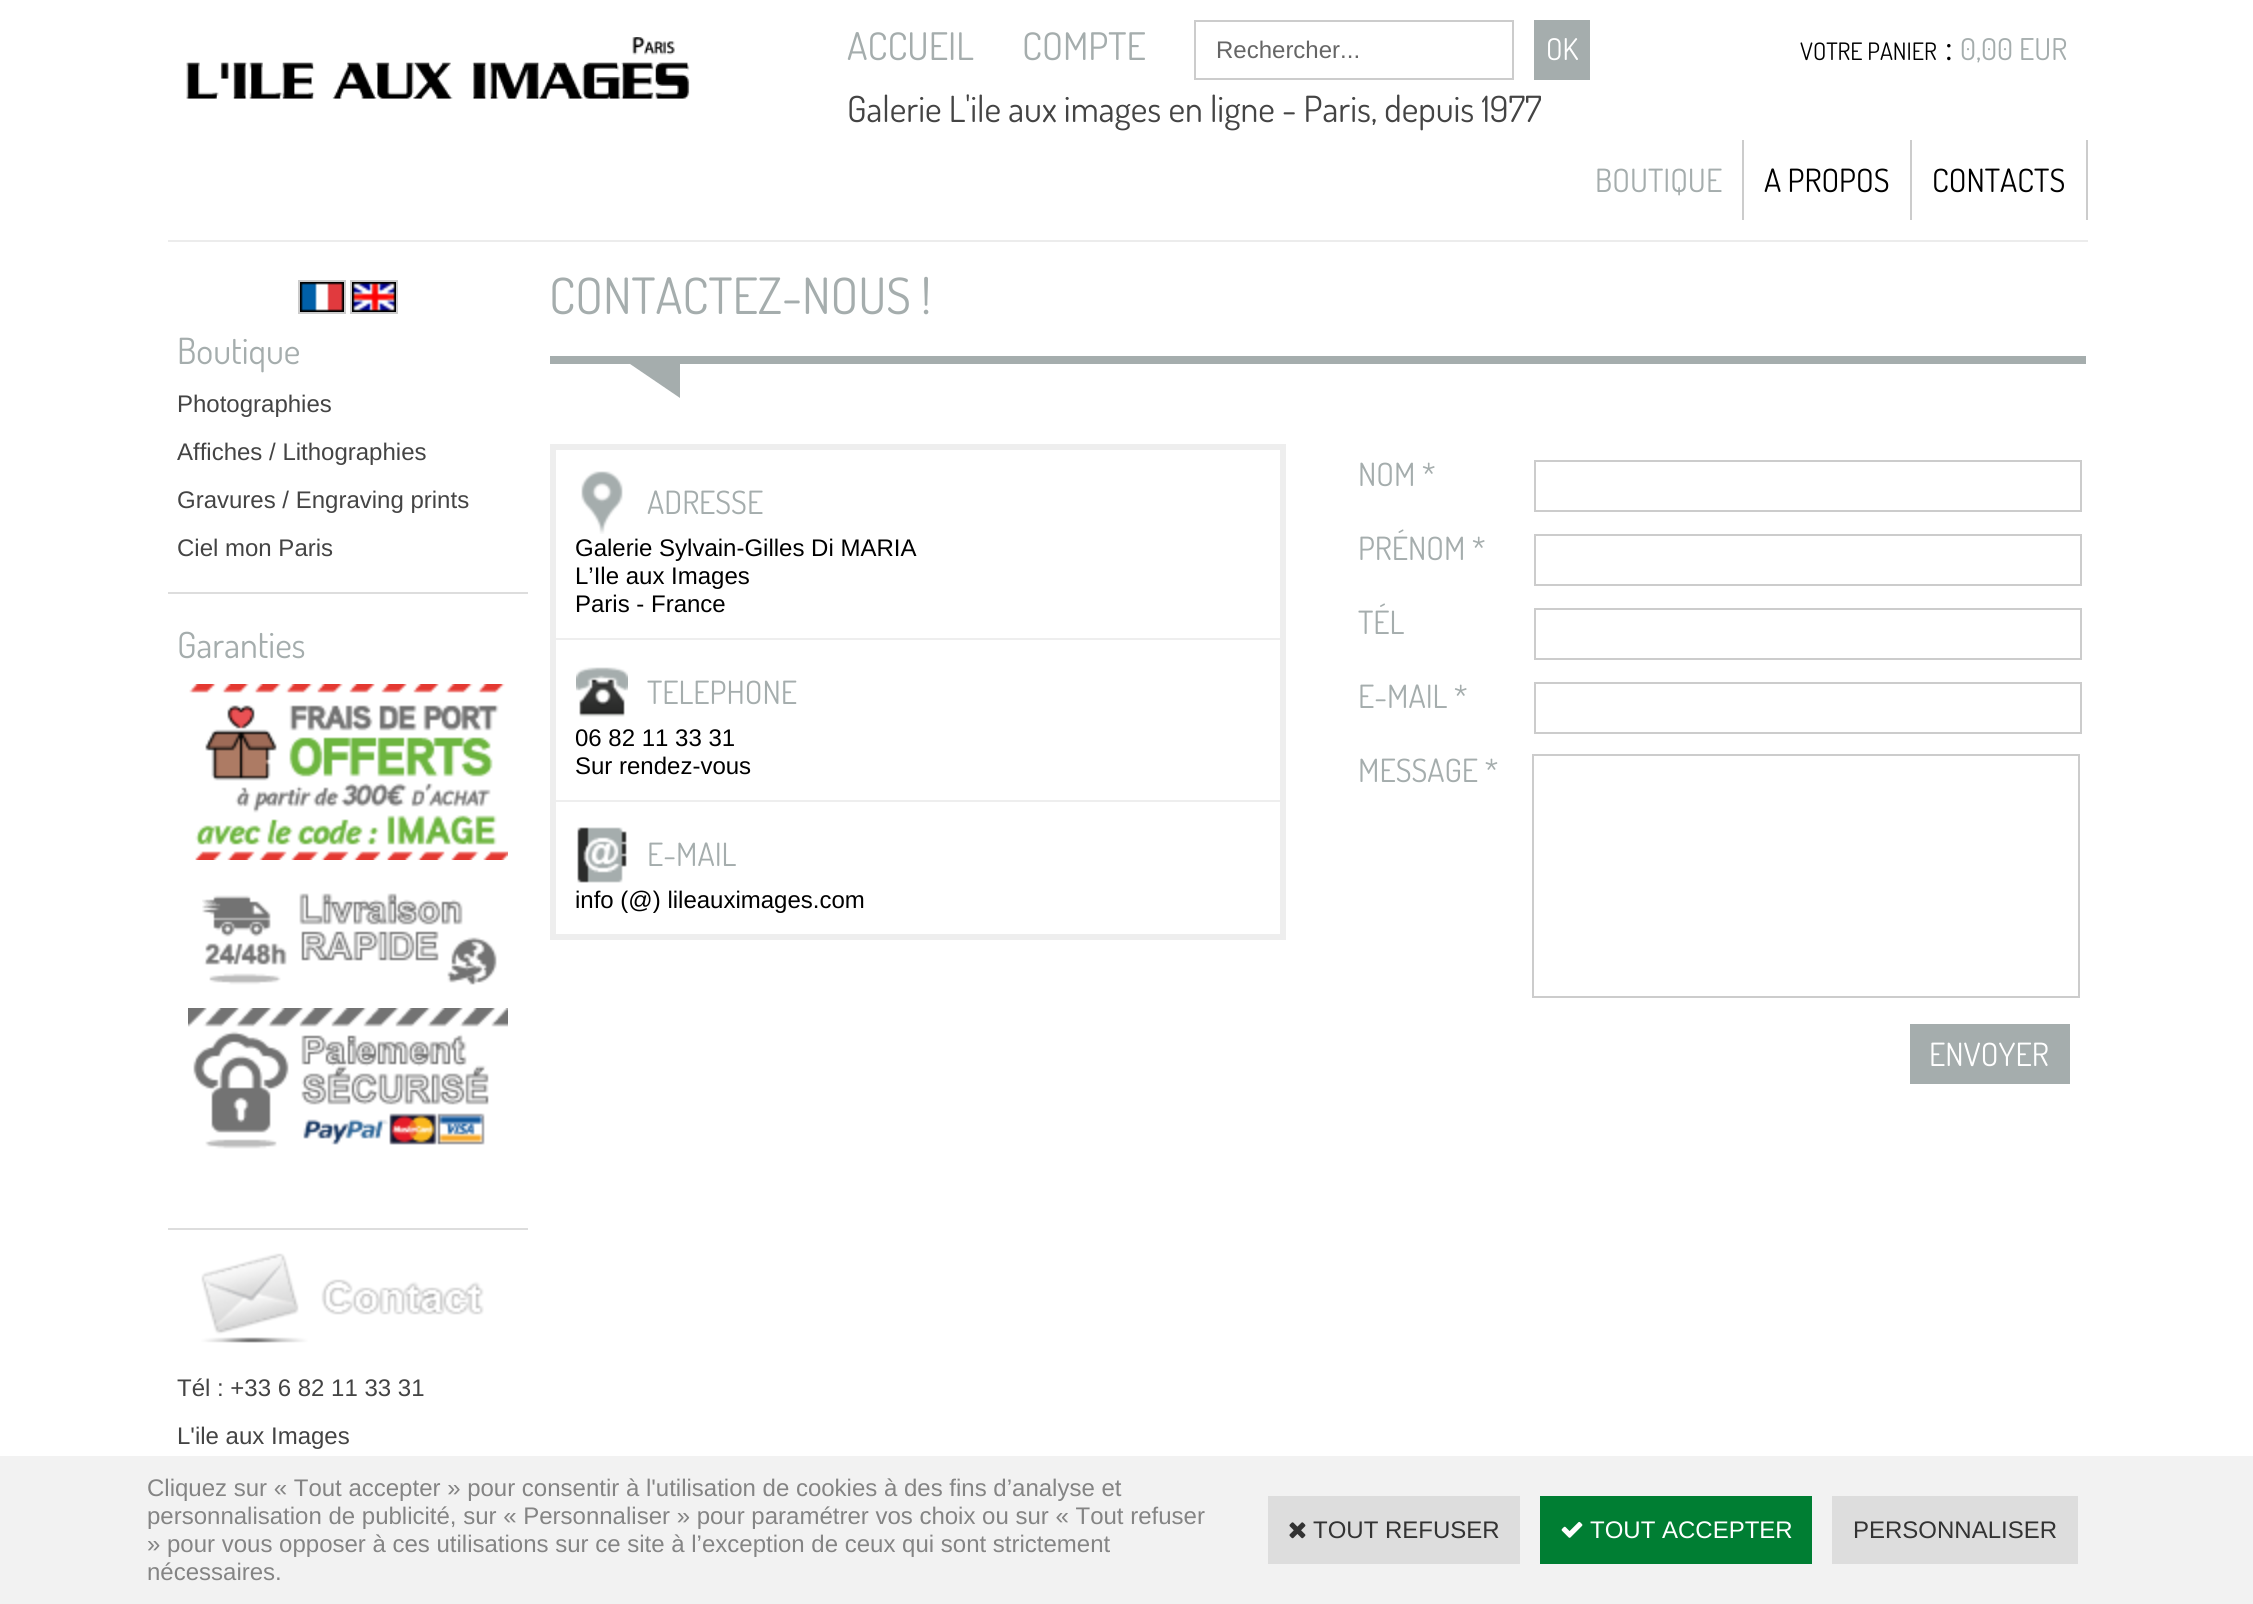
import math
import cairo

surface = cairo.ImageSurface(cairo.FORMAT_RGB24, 2253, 1604)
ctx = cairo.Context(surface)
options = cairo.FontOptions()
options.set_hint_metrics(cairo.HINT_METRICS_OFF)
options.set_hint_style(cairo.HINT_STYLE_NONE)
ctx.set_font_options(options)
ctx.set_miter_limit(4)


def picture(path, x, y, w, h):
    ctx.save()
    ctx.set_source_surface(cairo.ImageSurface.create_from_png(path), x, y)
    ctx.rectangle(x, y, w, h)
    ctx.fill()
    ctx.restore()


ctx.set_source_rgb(1, 1, 1)
ctx.paint()
ctx.set_source_rgb(0.922, 0.922, 0.922)
ctx.rectangle(168, 240, 1920, 2)
ctx.fill()
picture("img1.png", 186, 37, 504, 62)
ctx.select_font_face("Dosis")
ctx.set_font_size(38)
ctx.set_source_rgb(0.647, 0.678, 0.678)
ctx.move_to(847, 60)
ctx.show_text("ACCUEIL")
ctx.move_to(1022, 60)
ctx.show_text("COMPTE")
ctx.rectangle(1195, 21, 318, 58)
ctx.set_source_rgb(0.8, 0.8, 0.8)
ctx.stroke()
ctx.select_font_face("Liberation Sans")
ctx.set_font_size(24)
ctx.set_source_rgb(0.4, 0.4, 0.4)
ctx.move_to(1216, 58)
ctx.show_text("Rechercher...")
ctx.set_source_rgb(0.647, 0.678, 0.678)
ctx.rectangle(1534, 20, 56, 60)
ctx.fill()
ctx.select_font_face("Dosis")
ctx.set_font_size(30)
ctx.set_source_rgb(1, 1, 1)
ctx.move_to(1546, 60)
ctx.show_text("OK")
ctx.set_font_size(24)
ctx.set_source_rgb(0, 0, 0)
ctx.move_to(1800, 60)
ctx.show_text("VOTRE PANIER")
ctx.set_font_size(38)
ctx.move_to(1945, 60)
ctx.show_text(":")
ctx.set_font_size(30)
ctx.set_source_rgb(0.647, 0.678, 0.678)
ctx.move_to(1960, 60)
ctx.show_text("0,00 EUR")
ctx.set_font_size(36)
ctx.set_source_rgb(0.267, 0.267, 0.267)
ctx.move_to(847, 122)
ctx.show_text("Galerie L'ile aux images en ligne - Paris, depuis 1977")
ctx.set_source_rgb(0.8, 0.8, 0.8)
ctx.rectangle(1742, 140, 2, 80)
ctx.fill()
ctx.set_font_size(32)
ctx.set_source_rgb(0.647, 0.678, 0.678)
ctx.move_to(1595, 192)
ctx.show_text("BOUTIQUE")
ctx.set_source_rgb(0.8, 0.8, 0.8)
ctx.rectangle(1910, 140, 2, 80)
ctx.fill()
ctx.set_source_rgb(0, 0, 0)
ctx.move_to(1764, 192)
ctx.show_text("A PROPOS")
ctx.set_source_rgb(0.8, 0.8, 0.8)
ctx.rectangle(2086, 140, 2, 80)
ctx.fill()
ctx.set_source_rgb(0, 0, 0)
ctx.move_to(1932, 192)
ctx.show_text("CONTACTS")
picture("img2.png", 300, 282, 44, 30)
ctx.rectangle(299, 281, 46, 32)
ctx.set_source_rgb(0.8, 0.8, 0.8)
ctx.stroke()
picture("img3.png", 352, 282, 44, 30)
ctx.rectangle(351, 281, 46, 32)
ctx.stroke()
ctx.set_font_size(36)
ctx.set_source_rgb(0.647, 0.678, 0.678)
ctx.move_to(177, 364)
ctx.show_text("Boutique")
ctx.select_font_face("Liberation Sans")
ctx.set_font_size(24)
ctx.set_source_rgb(0.267, 0.267, 0.267)
ctx.move_to(177, 412)
ctx.show_text("Photographies")
ctx.move_to(177, 460)
ctx.show_text("Affiches / Lithographies")
ctx.move_to(177, 508)
ctx.show_text("Gravures / Engraving prints")
ctx.move_to(177, 556)
ctx.show_text("Ciel mon Paris")
ctx.set_source_rgb(0.867, 0.867, 0.867)
ctx.rectangle(168, 592, 360, 2)
ctx.fill()
ctx.select_font_face("Dosis")
ctx.set_font_size(36)
ctx.set_source_rgb(0.647, 0.678, 0.678)
ctx.move_to(177, 658)
ctx.show_text("Garanties")
picture("img4.png", 189, 684, 319, 176)
picture("img5.png", 202, 893, 295, 92)
picture("img6.png", 188, 1008, 320, 141)
ctx.set_source_rgb(0.867, 0.867, 0.867)
ctx.rectangle(168, 1228, 360, 2)
ctx.fill()
picture("img7.png", 201, 1253, 283, 90)
ctx.select_font_face("Liberation Sans")
ctx.set_font_size(24)
ctx.set_source_rgb(0.267, 0.267, 0.267)
ctx.move_to(177, 1396)
ctx.show_text("Tél : +33 6 82 11 33 31")
ctx.move_to(177, 1444)
ctx.show_text("L'ile aux Images")
ctx.select_font_face("Dosis")
ctx.set_font_size(50)
ctx.set_source_rgb(0.647, 0.678, 0.678)
ctx.move_to(549, 314)
ctx.show_text("CONTACTEZ-NOUS !")
ctx.rectangle(550, 356, 1536, 8)
ctx.fill()
ctx.new_path()
ctx.move_to(680, 364)
ctx.line_to(680, 398)
ctx.line_to(630, 364)
ctx.close_path()
ctx.fill()
ctx.rectangle(553, 447, 730, 490)
ctx.set_source_rgb(0.933, 0.933, 0.933)
ctx.set_line_width(6)
ctx.stroke()
ctx.rectangle(556, 638, 724, 2)
ctx.fill()
ctx.set_source_rgb(0.647, 0.678, 0.678)
ctx.rectangle(581, 471, 42, 63)
ctx.fill()
picture("img8.png", 576, 470, 52, 64)
ctx.set_font_size(32)
ctx.move_to(647, 514)
ctx.show_text("ADRESSE")
ctx.select_font_face("Liberation Sans")
ctx.set_font_size(24)
ctx.set_source_rgb(0, 0, 0)
ctx.move_to(575, 556)
ctx.show_text("Galerie Sylvain-Gilles Di MARIA")
ctx.move_to(575, 584)
ctx.show_text("L’Ile aux Images")
ctx.move_to(575, 612)
ctx.show_text("Paris - France")
ctx.set_source_rgb(0.933, 0.933, 0.933)
ctx.rectangle(556, 800, 724, 2)
ctx.fill()
ctx.set_source_rgb(0.647, 0.678, 0.678)
ctx.rectangle(576, 667, 52, 24)
ctx.fill()
picture("img9.png", 576, 660, 52, 64)
ctx.select_font_face("Dosis")
ctx.set_font_size(32)
ctx.move_to(647, 704)
ctx.show_text("TELEPHONE")
ctx.select_font_face("Liberation Sans")
ctx.set_font_size(24)
ctx.set_source_rgb(0, 0, 0)
ctx.move_to(575, 746)
ctx.show_text("06 82 11 33 31")
ctx.move_to(575, 774)
ctx.show_text("Sur rendez-vous")
ctx.set_source_rgb(0.647, 0.678, 0.678)
ctx.rectangle(579, 827, 44, 56)
ctx.fill()
picture("img10.png", 576, 822, 52, 64)
ctx.select_font_face("Dosis")
ctx.set_font_size(32)
ctx.move_to(647, 866)
ctx.show_text("E-MAIL")
ctx.select_font_face("Liberation Sans")
ctx.set_font_size(24)
ctx.set_source_rgb(0, 0, 0)
ctx.move_to(575, 908)
ctx.show_text("info (@) lileauximages.com")
ctx.select_font_face("Dosis")
ctx.set_font_size(32)
ctx.set_source_rgb(0.647, 0.678, 0.678)
ctx.move_to(1358, 486)
ctx.show_text("NOM *")
ctx.rectangle(1535, 461, 546, 50)
ctx.set_source_rgb(0.8, 0.8, 0.8)
ctx.set_line_width(2)
ctx.stroke()
ctx.set_source_rgb(0.647, 0.678, 0.678)
ctx.move_to(1358, 560)
ctx.show_text("PRÉNOM *")
ctx.rectangle(1535, 535, 546, 50)
ctx.set_source_rgb(0.8, 0.8, 0.8)
ctx.stroke()
ctx.set_source_rgb(0.647, 0.678, 0.678)
ctx.move_to(1358, 634)
ctx.show_text("TÉL")
ctx.rectangle(1535, 609, 546, 50)
ctx.set_source_rgb(0.8, 0.8, 0.8)
ctx.stroke()
ctx.set_source_rgb(0.647, 0.678, 0.678)
ctx.move_to(1358, 708)
ctx.show_text("E-MAIL *")
ctx.rectangle(1535, 683, 546, 50)
ctx.set_source_rgb(0.8, 0.8, 0.8)
ctx.stroke()
ctx.set_source_rgb(0.647, 0.678, 0.678)
ctx.move_to(1358, 782)
ctx.show_text("MESSAGE *")
ctx.rectangle(1533, 755, 546, 242)
ctx.set_source_rgb(0.8, 0.8, 0.8)
ctx.stroke()
ctx.set_source_rgb(0.647, 0.678, 0.678)
ctx.rectangle(1910, 1024, 160, 60)
ctx.fill()
ctx.set_source_rgb(1, 1, 1)
ctx.move_to(1929, 1066)
ctx.show_text("ENVOYER")
ctx.set_source_rgb(0.949, 0.949, 0.949)
ctx.rectangle(0, 1456, 2253, 148)
ctx.fill()
ctx.select_font_face("Liberation Sans")
ctx.set_font_size(24)
ctx.set_source_rgb(0.518, 0.518, 0.518)
ctx.move_to(147, 1496)
ctx.show_text("Cliquez sur « Tout accepter » pour consentir à l'utilisation de cookies à des fins d’analyse et")
ctx.move_to(147, 1524)
ctx.show_text("personnalisation de publicité, sur « Personnaliser » pour paramétrer vos choix ou sur « Tout refuser")
ctx.move_to(147, 1552)
ctx.show_text("» pour vous opposer à ces utilisations sur ce site à l’exception de ceux qui sont strictement")
ctx.move_to(147, 1580)
ctx.show_text("nécessaires.")
ctx.set_source_rgb(0.867, 0.867, 0.867)
ctx.rectangle(1268, 1496, 252, 68)
ctx.fill()
picture("img11.png", 1289, 1522, 17, 17)
ctx.set_source_rgb(0.2, 0.2, 0.2)
ctx.move_to(1313, 1538)
ctx.show_text("TOUT REFUSER")
ctx.set_source_rgb(0, 0.494, 0.2)
ctx.rectangle(1540, 1496, 272, 68)
ctx.fill()
picture("img12.png", 1561, 1521, 22, 17)
ctx.set_source_rgb(1, 1, 1)
ctx.move_to(1590, 1538)
ctx.show_text("TOUT ACCEPTER")
ctx.set_source_rgb(0.867, 0.867, 0.867)
ctx.rectangle(1832, 1496, 246, 68)
ctx.fill()
ctx.set_source_rgb(0.2, 0.2, 0.2)
ctx.move_to(1853, 1538)
ctx.show_text("PERSONNALISER")
surface.write_to_png("page.png")
